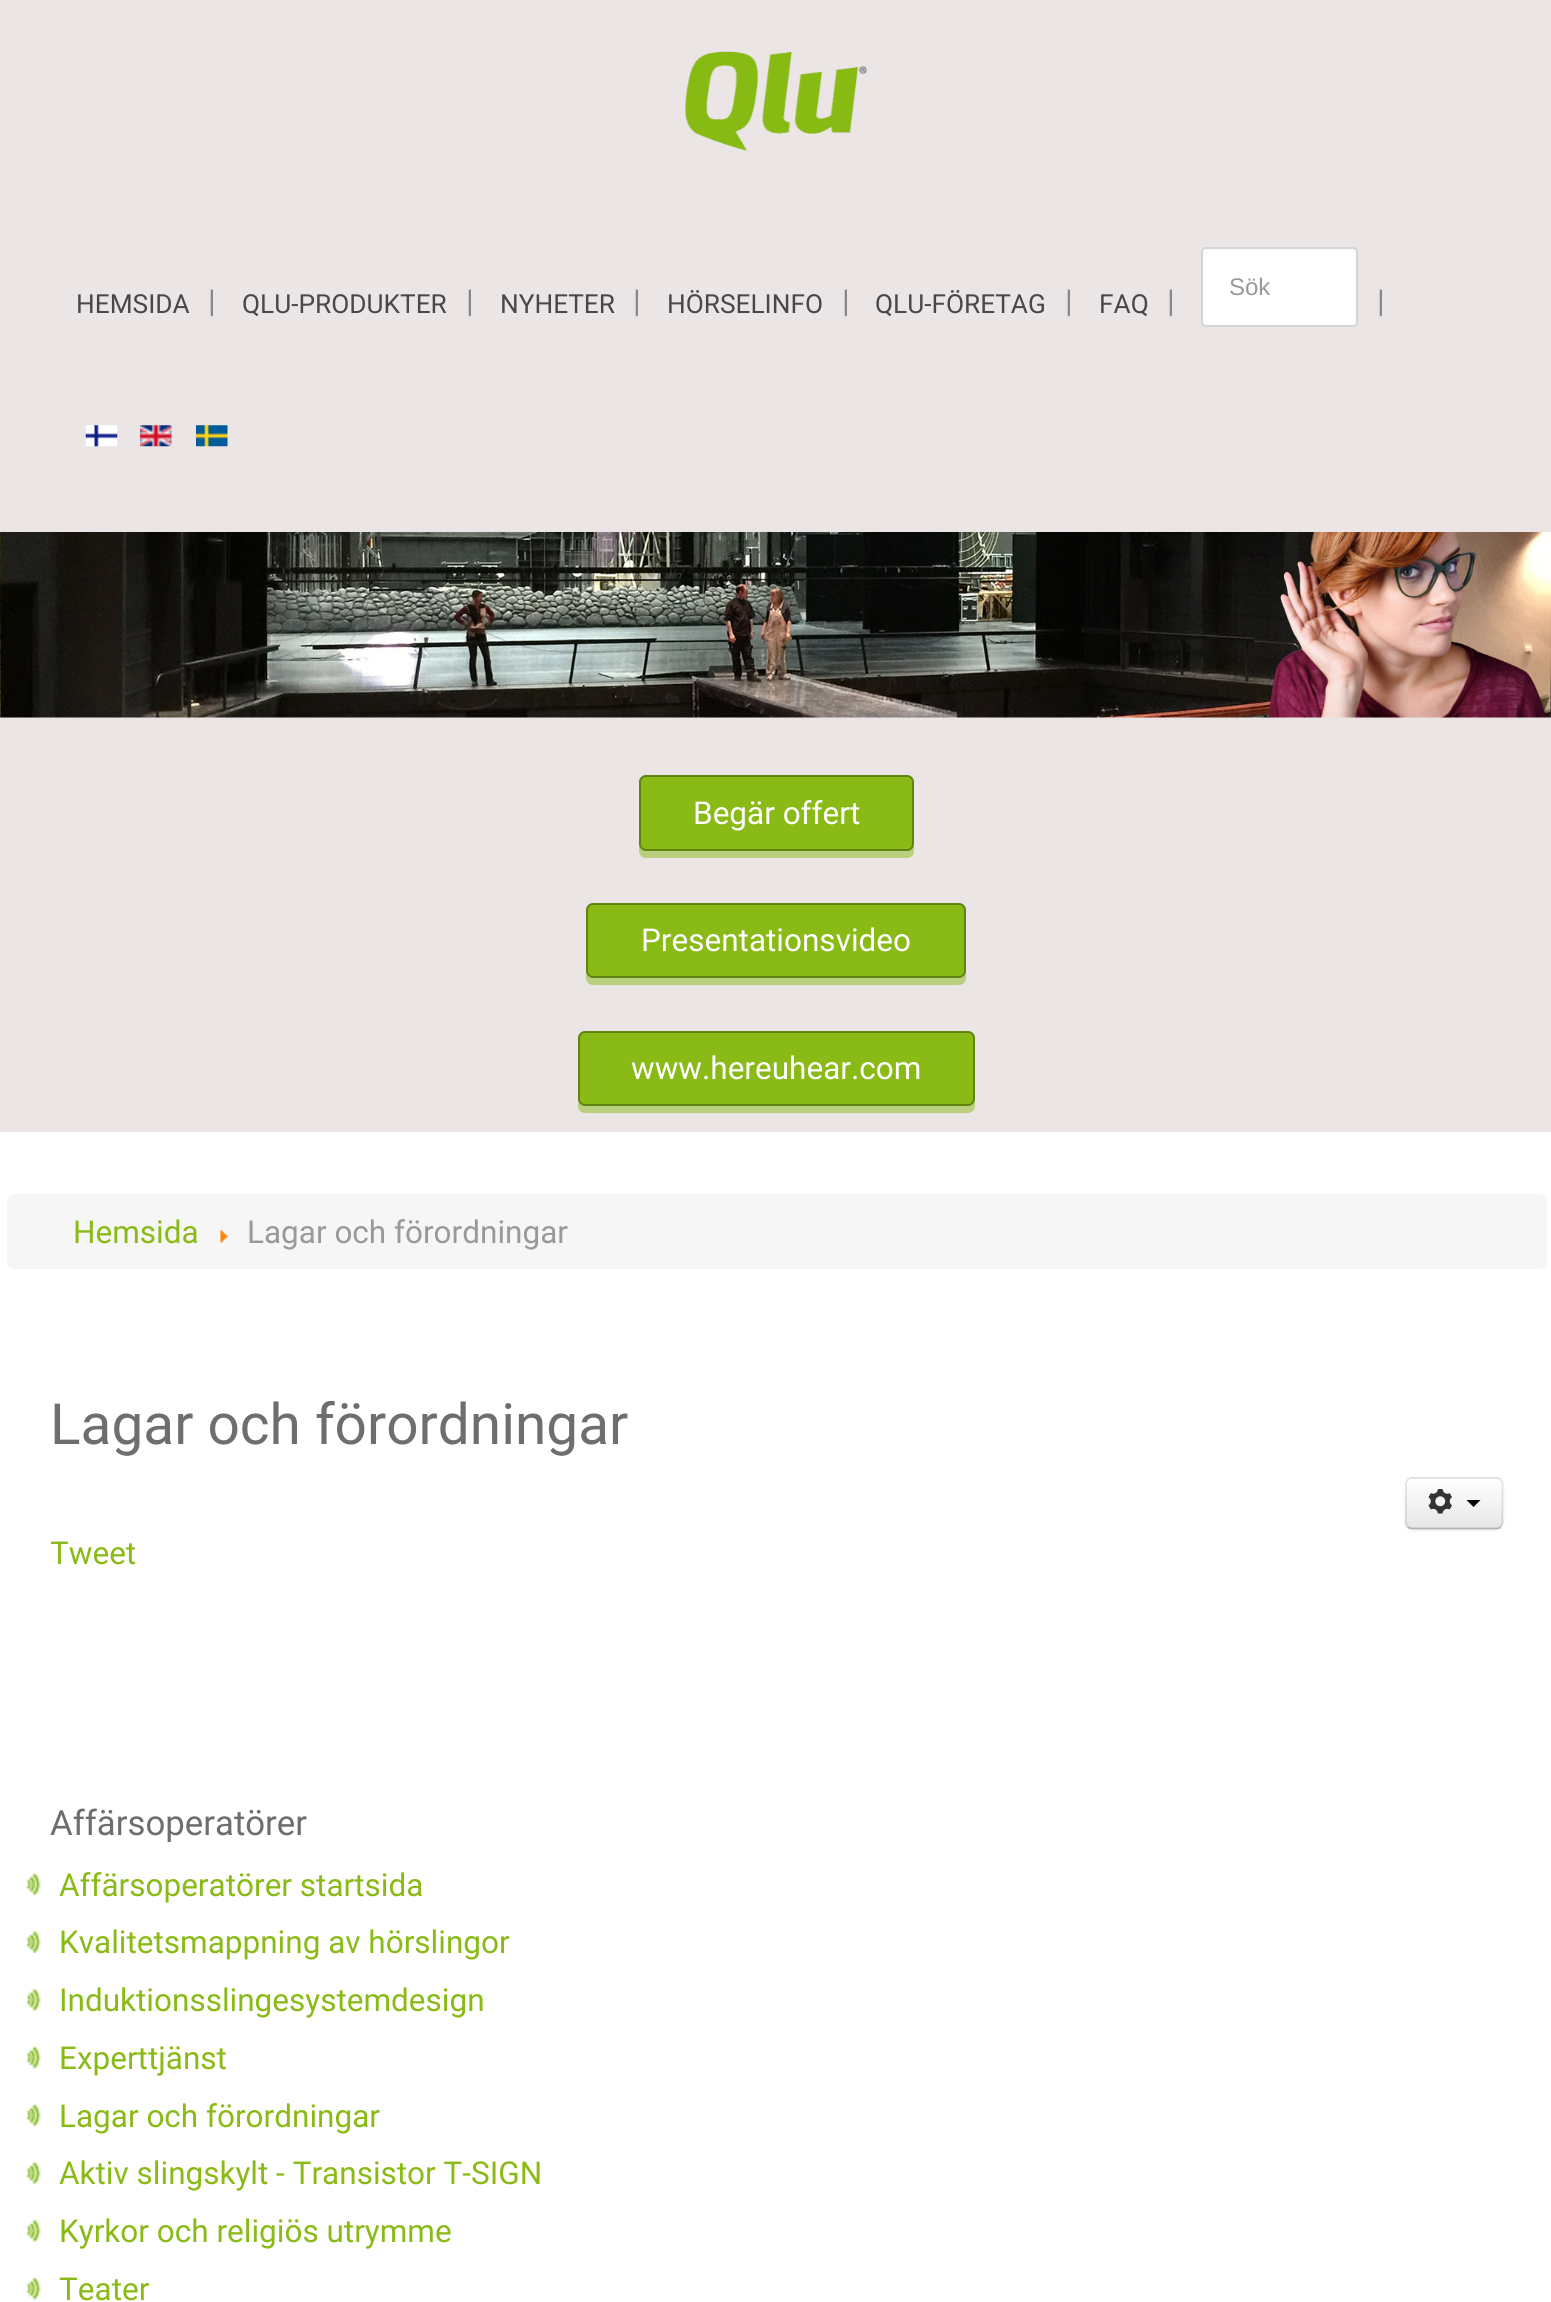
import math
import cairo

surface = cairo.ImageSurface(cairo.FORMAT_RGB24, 1551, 2302)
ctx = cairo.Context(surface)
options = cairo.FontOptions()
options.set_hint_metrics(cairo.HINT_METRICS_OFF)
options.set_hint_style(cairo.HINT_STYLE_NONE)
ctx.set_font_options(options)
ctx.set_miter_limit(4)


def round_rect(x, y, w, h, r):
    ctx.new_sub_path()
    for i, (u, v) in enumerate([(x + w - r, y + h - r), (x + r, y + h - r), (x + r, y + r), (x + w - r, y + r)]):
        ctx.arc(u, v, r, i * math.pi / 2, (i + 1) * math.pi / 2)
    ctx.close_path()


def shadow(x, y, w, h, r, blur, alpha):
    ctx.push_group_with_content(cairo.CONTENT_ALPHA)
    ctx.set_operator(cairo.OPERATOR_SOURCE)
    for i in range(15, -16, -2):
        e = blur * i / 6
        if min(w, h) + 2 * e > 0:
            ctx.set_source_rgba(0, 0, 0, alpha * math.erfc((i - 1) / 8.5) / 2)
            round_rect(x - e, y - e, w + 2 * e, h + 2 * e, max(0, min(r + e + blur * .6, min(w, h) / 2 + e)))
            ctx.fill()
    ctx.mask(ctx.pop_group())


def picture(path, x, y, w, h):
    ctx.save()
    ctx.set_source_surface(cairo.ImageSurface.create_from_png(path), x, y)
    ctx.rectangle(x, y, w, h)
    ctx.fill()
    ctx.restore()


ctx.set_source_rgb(1, 1, 1)
ctx.paint()
ctx.set_source_rgb(0.918, 0.902, 0.898)
ctx.rectangle(0, 0, 1551, 1132)
ctx.fill()
picture("img1.png", 0, 532, 1551, 186)
picture("img2.png", 685, 51, 182, 100)
ctx.select_font_face("Roboto")
ctx.set_font_size(26.25)
ctx.set_source_rgb(0.286, 0.282, 0.282)
ctx.move_to(76, 313)
ctx.show_text("HEMSIDA")
ctx.set_font_size(31.5)
ctx.set_source_rgb(0.537, 0.529, 0.533)
ctx.move_to(208, 312)
ctx.show_text("|")
ctx.set_font_size(26.25)
ctx.set_source_rgb(0.286, 0.282, 0.282)
ctx.move_to(242, 313)
ctx.show_text("QLU-PRODUKTER")
ctx.set_font_size(31.5)
ctx.set_source_rgb(0.537, 0.529, 0.533)
ctx.move_to(466, 312)
ctx.show_text("|")
ctx.set_font_size(26.25)
ctx.set_source_rgb(0.286, 0.282, 0.282)
ctx.move_to(500, 313)
ctx.show_text("NYHETER")
ctx.set_font_size(31.5)
ctx.set_source_rgb(0.537, 0.529, 0.533)
ctx.move_to(633, 312)
ctx.show_text("|")
ctx.set_font_size(26.25)
ctx.set_source_rgb(0.286, 0.282, 0.282)
ctx.move_to(667, 313)
ctx.show_text("HÖRSELINFO")
ctx.set_font_size(31.5)
ctx.set_source_rgb(0.537, 0.529, 0.533)
ctx.move_to(842, 312)
ctx.show_text("|")
ctx.set_font_size(26.25)
ctx.set_source_rgb(0.286, 0.282, 0.282)
ctx.move_to(875, 313)
ctx.show_text("QLU-FÖRETAG")
ctx.set_font_size(31.5)
ctx.set_source_rgb(0.537, 0.529, 0.533)
ctx.move_to(1065, 312)
ctx.show_text("|")
ctx.set_font_size(26.25)
ctx.set_source_rgb(0.286, 0.282, 0.282)
ctx.move_to(1099, 313)
ctx.show_text("FAQ")
ctx.set_font_size(31.5)
ctx.set_source_rgb(0.537, 0.529, 0.533)
ctx.move_to(1167, 312)
ctx.show_text("|")
ctx.set_source_rgb(1, 1, 1)
round_rect(1202, 248, 155, 78, 4)
ctx.fill_preserve()
ctx.set_source_rgb(0.835, 0.835, 0.835)
ctx.stroke()
ctx.select_font_face("Liberation Sans")
ctx.set_font_size(24)
ctx.set_source_rgb(0.6, 0.6, 0.6)
ctx.move_to(1229, 295)
ctx.show_text("Sök")
ctx.select_font_face("Roboto")
ctx.set_font_size(31.5)
ctx.set_source_rgb(0.537, 0.529, 0.533)
ctx.move_to(1377, 312)
ctx.show_text("|")
picture("img3.png", 85, 425, 33, 22)
picture("img4.png", 140, 425, 32, 22)
picture("img5.png", 196, 425, 32, 22)
ctx.set_source_rgb(0.729, 0.816, 0.494)
ctx.new_path()
ctx.move_to(639, 845)
ctx.line_to(639, 851)
ctx.curve_to(639, 855, 642, 858, 646, 858)
ctx.line_to(907, 858)
ctx.curve_to(911, 858, 914, 855, 914, 851)
ctx.line_to(914, 789)
ctx.line_to(914, 786)
ctx.line_to(914, 844)
ctx.curve_to(914, 847, 910, 850, 906, 850)
ctx.line_to(646, 850)
ctx.curve_to(643, 850, 640, 848, 639, 845)
ctx.close_path()
ctx.fill()
ctx.set_source_rgb(0.537, 0.729, 0.086)
round_rect(640, 776, 273, 74, 6)
ctx.fill_preserve()
ctx.set_source_rgb(0.38, 0.514, 0.063)
ctx.stroke()
ctx.set_source_rgb(1, 1, 1)
ctx.move_to(693, 824)
ctx.show_text("Begär offert")
ctx.set_source_rgb(0.729, 0.816, 0.494)
ctx.new_path()
ctx.move_to(586, 915)
ctx.line_to(586, 978)
ctx.curve_to(586, 982, 589, 985, 593, 985)
ctx.line_to(959, 985)
ctx.curve_to(963, 985, 966, 982, 966, 978)
ctx.line_to(966, 971)
ctx.curve_to(966, 975, 963, 978, 959, 978)
ctx.line_to(593, 978)
ctx.curve_to(589, 978, 586, 975, 586, 971)
ctx.close_path()
ctx.fill()
ctx.set_source_rgb(0.537, 0.729, 0.086)
round_rect(587, 904, 378, 73, 6)
ctx.fill_preserve()
ctx.set_source_rgb(0.38, 0.514, 0.063)
ctx.stroke()
ctx.set_source_rgb(1, 1, 1)
ctx.move_to(641, 951)
ctx.show_text("Presentationsvideo")
ctx.set_source_rgb(0.729, 0.816, 0.494)
ctx.new_path()
ctx.move_to(578, 1102)
ctx.line_to(578, 1106)
ctx.curve_to(578, 1110, 581, 1113, 585, 1113)
ctx.line_to(968, 1113)
ctx.curve_to(972, 1113, 975, 1110, 975, 1106)
ctx.line_to(975, 1043)
ctx.line_to(975, 1099)
ctx.curve_to(975, 1103, 972, 1106, 968, 1106)
ctx.line_to(584, 1106)
ctx.curve_to(582, 1106, 579, 1104, 578, 1102)
ctx.close_path()
ctx.fill()
ctx.set_source_rgb(0.537, 0.729, 0.086)
round_rect(579, 1032, 395, 73, 6)
ctx.fill_preserve()
ctx.set_source_rgb(0.38, 0.514, 0.063)
ctx.stroke()
ctx.set_source_rgb(1, 1, 1)
ctx.move_to(631, 1079)
ctx.show_text("www.hereuhear.com")
ctx.set_source_rgb(0.961, 0.961, 0.961)
round_rect(7, 1194, 1540, 75, 7)
ctx.fill()
ctx.set_source_rgb(0.537, 0.729, 0.086)
ctx.move_to(73, 1243)
ctx.show_text("Hemsida")
picture("img6.png", 220, 1229, 8, 14)
ctx.set_source_rgb(0.6, 0.6, 0.6)
ctx.move_to(247, 1243)
ctx.show_text("Lagar och förordningar")
ctx.set_font_size(56.75)
ctx.set_source_rgb(0.431, 0.431, 0.431)
ctx.move_to(50, 1444)
ctx.show_text("Lagar och förordningar")
ctx.set_source_rgb(0, 0, 0)
shadow(1405, 1479, 98, 52, 7, 2, 0.05)
ctx.set_source_rgb(0.961, 0.961, 0.961)
round_rect(1405, 1477, 98, 53, 7)
ctx.fill()
ctx.save()
round_rect(1405, 1477, 98, 53, 7)
ctx.clip()
gradient = cairo.LinearGradient(1454, 1479, 1454, 1528)
gradient.add_color_stop_rgba(0, 1, 1, 1, 1)
gradient.add_color_stop_rgba(1, 0.902, 0.902, 0.902, 1)
ctx.set_source(gradient)
ctx.rectangle(1405, 1479, 98, 49)
ctx.fill()
ctx.restore()
ctx.new_path()
ctx.move_to(1500.5, 1527)
ctx.curve_to(1499.5, 1528, 1498, 1528.5, 1496, 1528.5)
ctx.line_to(1412, 1528.5)
ctx.curve_to(1410.5, 1528.5, 1409, 1528, 1408, 1527)
ctx.set_source_rgb(0.702, 0.702, 0.702)
ctx.set_line_width(1.8)
ctx.stroke()
ctx.new_path()
ctx.move_to(1408, 1527)
ctx.curve_to(1407, 1525.5, 1406, 1524, 1406, 1522.5)
ctx.line_to(1406, 1484)
ctx.curve_to(1406, 1482.5, 1407, 1481, 1408, 1479.5)
ctx.curve_to(1409, 1478.5, 1410.5, 1478, 1412, 1478)
ctx.line_to(1496, 1478)
ctx.curve_to(1498, 1478, 1499.5, 1478.5, 1500.5, 1479.5)
ctx.curve_to(1501.5, 1481, 1502.5, 1482.5, 1502.5, 1484)
ctx.line_to(1502.5, 1522.5)
ctx.curve_to(1502.5, 1524, 1501.5, 1525.5, 1500.5, 1527)
ctx.set_source_rgba(0, 0, 0, 0.1)
ctx.stroke()
picture("img7.png", 1428, 1489, 24, 25)
ctx.set_source_rgb(0, 0, 0)
ctx.new_path()
ctx.move_to(1466.5, 1500)
ctx.line_to(1480.5, 1500)
ctx.line_to(1473.5, 1507)
ctx.close_path()
ctx.fill()
ctx.save()
ctx.rectangle(51, 1530, 86, 47)
ctx.clip()
ctx.set_font_size(31.5)
ctx.set_source_rgb(0.537, 0.729, 0.086)
ctx.move_to(50, 1564)
ctx.show_text("Tweet")
ctx.restore()
ctx.set_font_size(34.75)
ctx.set_source_rgb(0.431, 0.431, 0.431)
ctx.move_to(50, 1835)
ctx.show_text("Affärsoperatörer")
picture("img8.png", 26, 1872, 15, 24)
ctx.set_font_size(31.5)
ctx.set_source_rgb(0.537, 0.729, 0.086)
ctx.move_to(59, 1896)
ctx.show_text("Affärsoperatörer startsida")
picture("img9.png", 26, 1930, 15, 23)
ctx.move_to(59, 1953)
ctx.show_text("Kvalitetsmappning av hörslingor")
picture("img10.png", 26, 1988, 15, 23)
ctx.move_to(59, 2011)
ctx.show_text("Induktionsslingesystemdesign")
picture("img11.png", 26, 2045, 15, 24)
ctx.move_to(59, 2069)
ctx.show_text("Experttjänst")
picture("img12.png", 26, 2103, 15, 24)
ctx.move_to(59, 2127)
ctx.show_text("Lagar och förordningar")
picture("img9.png", 26, 2161, 15, 23)
ctx.move_to(59, 2184)
ctx.show_text("Aktiv slingskylt - Transistor T-SIGN")
picture("img13.png", 26, 2219, 15, 23)
ctx.move_to(59, 2242)
ctx.show_text("Kyrkor och religiös utrymme")
picture("img11.png", 26, 2276, 15, 24)
ctx.move_to(59, 2300)
ctx.show_text("Teater")
surface.write_to_png("page.png")
